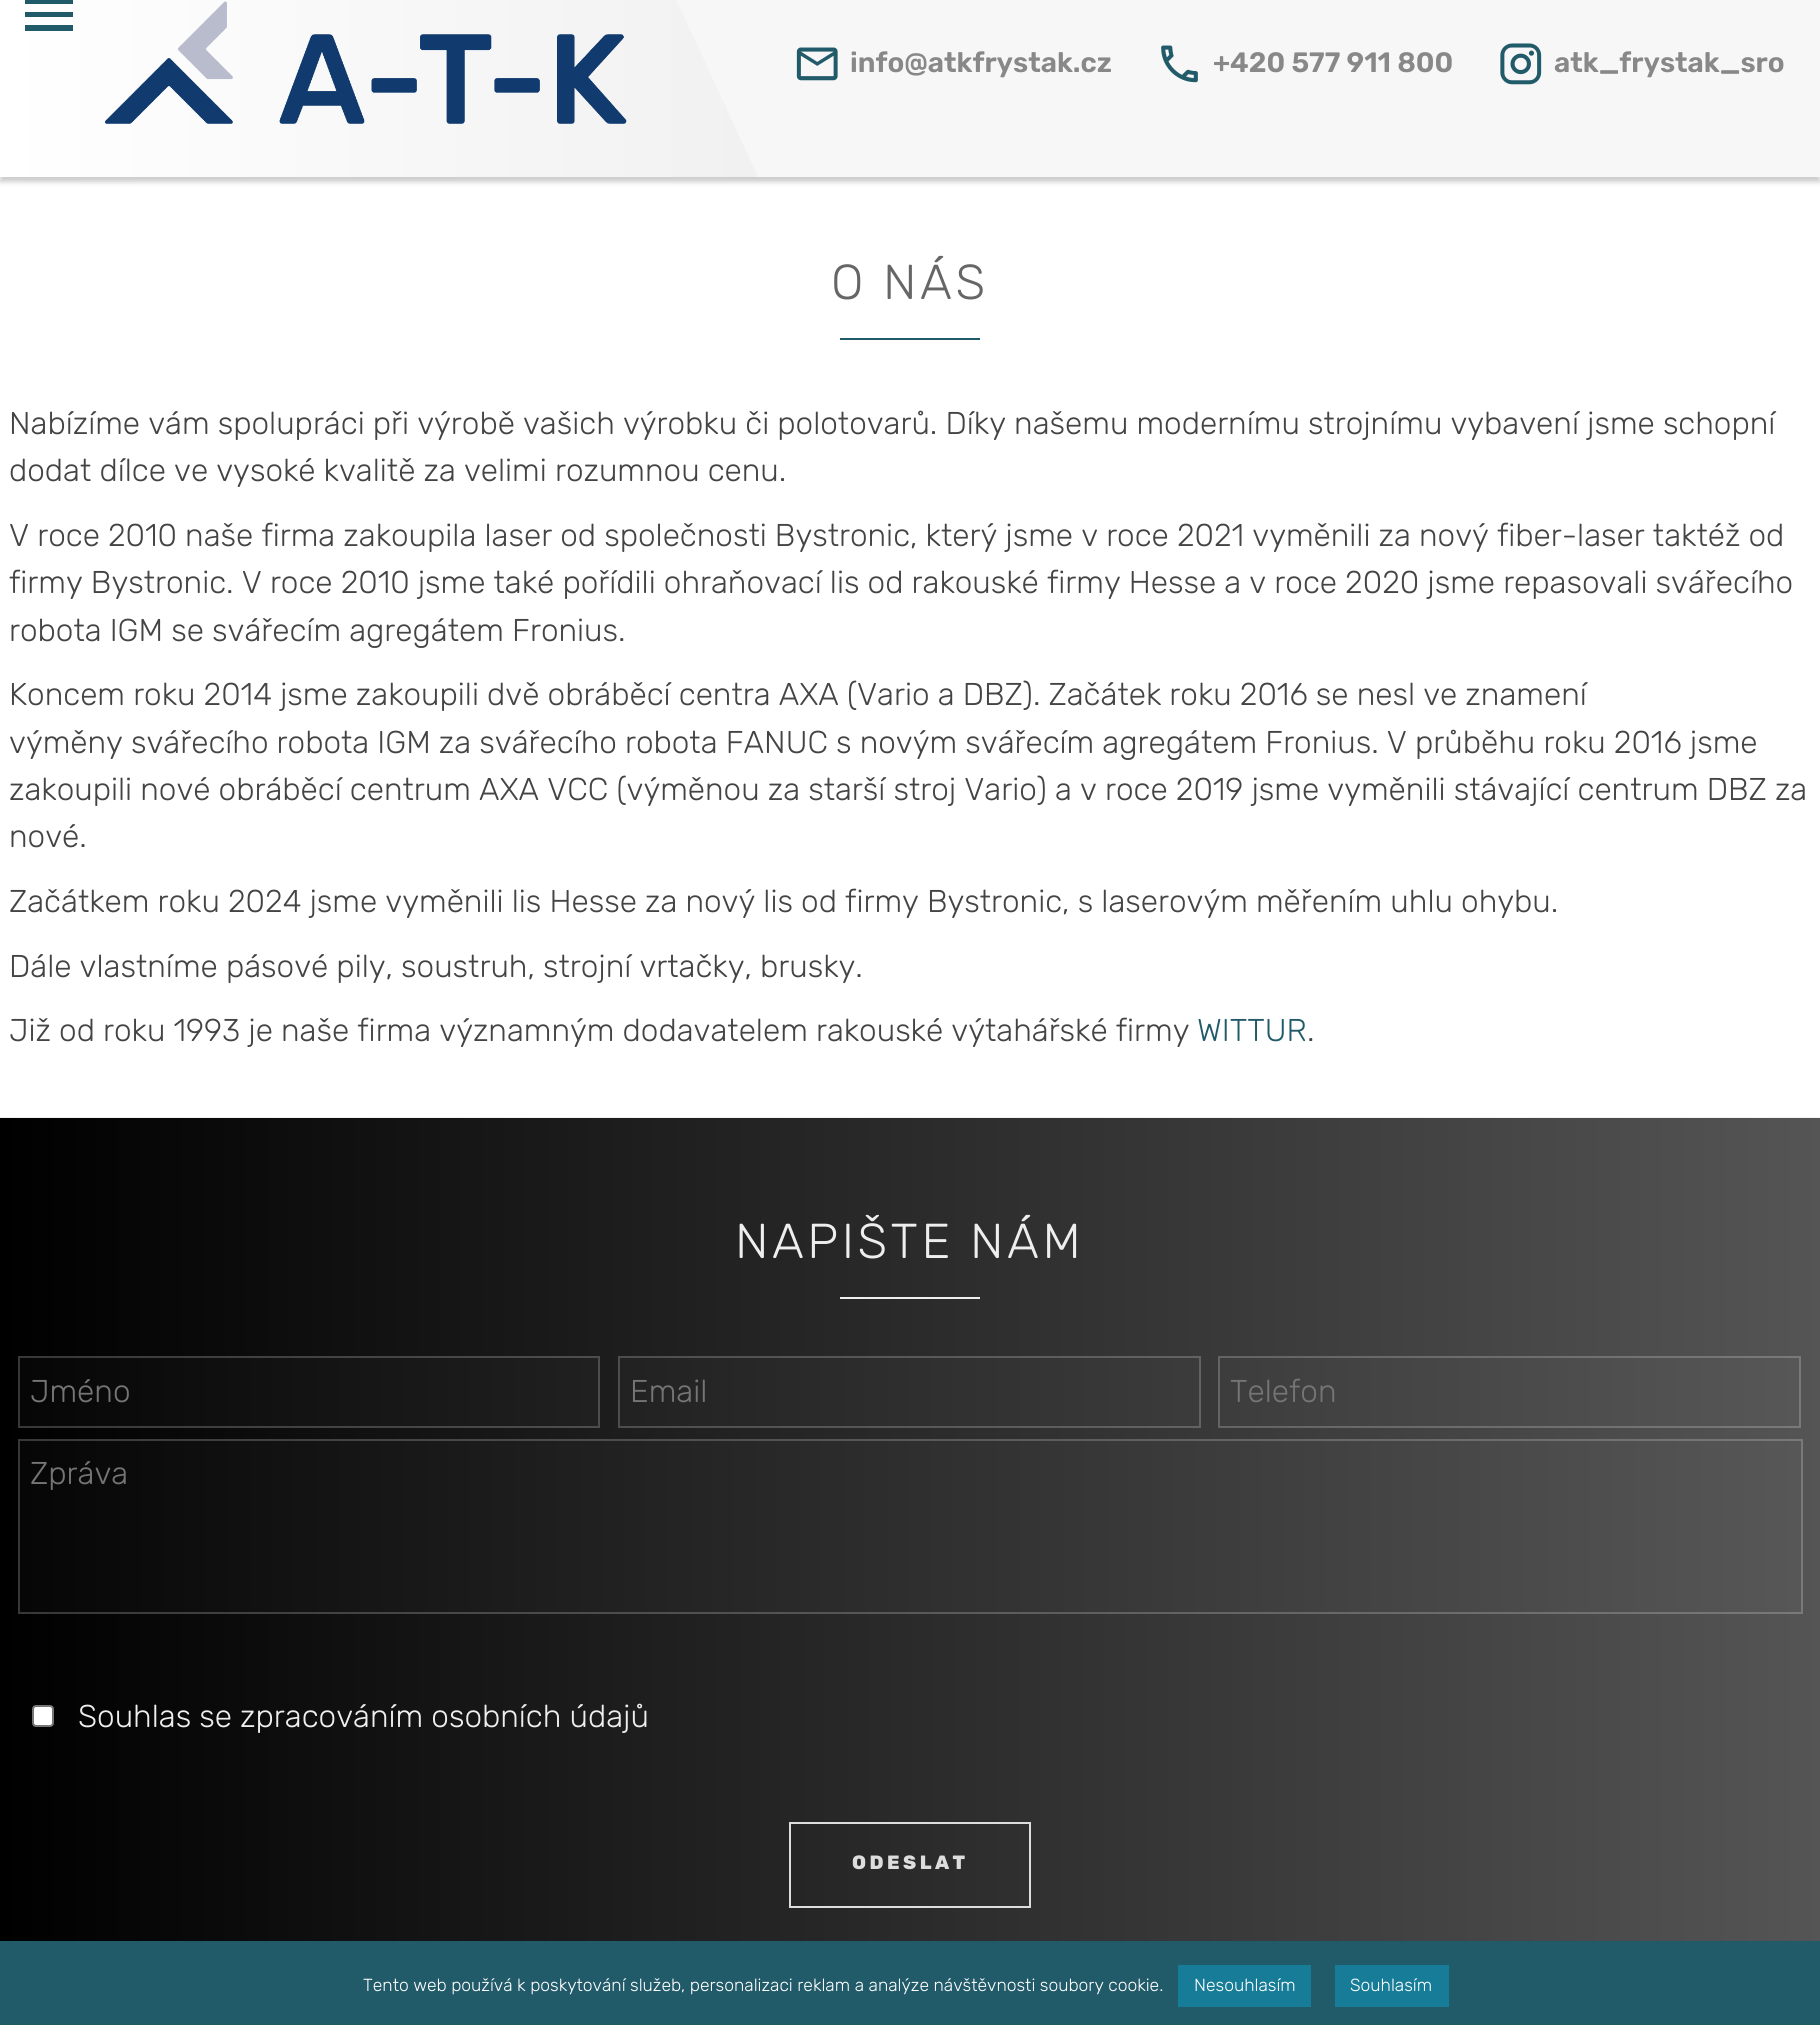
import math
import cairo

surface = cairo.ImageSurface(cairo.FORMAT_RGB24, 1820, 2025)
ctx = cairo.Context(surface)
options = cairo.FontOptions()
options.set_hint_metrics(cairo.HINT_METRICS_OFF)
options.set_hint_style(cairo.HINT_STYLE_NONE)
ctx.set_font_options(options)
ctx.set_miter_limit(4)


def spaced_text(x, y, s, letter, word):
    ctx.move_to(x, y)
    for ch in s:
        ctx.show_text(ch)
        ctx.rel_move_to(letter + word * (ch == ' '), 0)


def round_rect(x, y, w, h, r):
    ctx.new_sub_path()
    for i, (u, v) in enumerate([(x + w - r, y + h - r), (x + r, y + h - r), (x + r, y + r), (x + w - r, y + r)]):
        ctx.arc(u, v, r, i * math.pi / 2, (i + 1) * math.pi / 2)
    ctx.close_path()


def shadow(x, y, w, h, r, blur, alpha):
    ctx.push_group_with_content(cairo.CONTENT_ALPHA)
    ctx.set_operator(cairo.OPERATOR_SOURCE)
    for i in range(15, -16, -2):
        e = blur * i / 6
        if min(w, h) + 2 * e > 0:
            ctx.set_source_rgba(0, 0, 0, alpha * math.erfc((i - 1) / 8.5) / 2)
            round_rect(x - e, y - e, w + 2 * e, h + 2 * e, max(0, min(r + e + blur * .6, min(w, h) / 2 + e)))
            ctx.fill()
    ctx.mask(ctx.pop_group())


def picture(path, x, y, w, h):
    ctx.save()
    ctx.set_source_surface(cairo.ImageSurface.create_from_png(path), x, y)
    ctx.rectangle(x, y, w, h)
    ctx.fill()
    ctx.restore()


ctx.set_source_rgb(1, 1, 1)
ctx.paint()
ctx.set_source_rgb(0, 0, 0)
shadow(0, -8, 1820, 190, 0, 2.5, 0.2)
gradient = cairo.LinearGradient(0, 63, 1820, 63)
gradient.add_color_stop_rgba(0, 1, 1, 1, 1)
gradient.add_color_stop_rgba(1, 0.867, 0.867, 0.867, 1)
ctx.set_source(gradient)
ctx.rectangle(0, 0, 758, 177)
ctx.fill()
ctx.set_source_rgb(0.129, 0.353, 0.412)
ctx.new_path()
ctx.move_to(25, -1)
ctx.line_to(73, -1)
ctx.line_to(73, 4)
ctx.line_to(25, 4)
ctx.close_path()
ctx.move_to(25, 12)
ctx.line_to(73, 12)
ctx.line_to(73, 17)
ctx.line_to(25, 17)
ctx.close_path()
ctx.move_to(25, 25)
ctx.line_to(73, 25)
ctx.line_to(73, 31)
ctx.line_to(25, 31)
ctx.close_path()
ctx.fill()
picture("img1.png", 105, 1, 522, 123)
ctx.set_source_rgb(0.965, 0.965, 0.965)
ctx.rectangle(758, 0, 1062, 177)
ctx.fill()
ctx.new_path()
ctx.move_to(653, -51)
ctx.line_to(758, -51)
ctx.line_to(758, 177)
ctx.close_path()
ctx.fill()
picture("img2.png", 796, 47, 42, 34)
ctx.select_font_face("Rubik SemiBold")
ctx.set_font_size(28)
ctx.set_source_rgb(0.533, 0.533, 0.533)
ctx.move_to(850, 72)
ctx.show_text("info@atkfrystak.cz")
picture("img3.png", 1161, 45, 37, 38)
ctx.move_to(1213, 72)
ctx.show_text("+420 577 911 800")
picture("img4.png", 1500, 43, 42, 42)
ctx.move_to(1554, 72)
ctx.show_text("atk_frystak_sro")
ctx.set_source_rgb(0.949, 0.949, 0.949)
ctx.rectangle(0, 1117, 1820, 1)
ctx.fill()
ctx.select_font_face("Rubik Light")
ctx.set_font_size(49)
ctx.set_source_rgb(0.4, 0.4, 0.4)
spaced_text(831, 299, "O NÁS", 3.5, 0)
ctx.set_source_rgb(0.129, 0.353, 0.412)
ctx.rectangle(840, 338, 140, 2)
ctx.fill()
ctx.set_font_size(31.5)
ctx.set_source_rgb(0.267, 0.267, 0.267)
ctx.move_to(9, 434)
ctx.show_text("Nabízíme vám spolupráci při výrobě vašich výrobku či polotovarů. Díky našemu modernímu strojnímu vybavení jsme schopní")
ctx.move_to(9, 481)
ctx.show_text("dodat dílce ve vysoké kvalitě za velimi rozumnou cenu.")
ctx.move_to(9, 546)
ctx.show_text("V roce 2010 naše firma zakoupila laser od společnosti Bystronic, který jsme v roce 2021 vyměnili za nový fiber-laser taktéž od")
ctx.move_to(9, 593)
ctx.show_text("firmy Bystronic. V roce 2010 jsme také pořídili ohraňovací lis od rakouské firmy Hesse a v roce 2020 jsme repasovali svářecího")
ctx.move_to(9, 641)
ctx.show_text("robota IGM se svářecím agregátem Fronius.")
ctx.move_to(9, 705)
ctx.show_text("Koncem roku 2014 jsme zakoupili dvě obráběcí centra AXA (Vario a DBZ). Začátek roku 2016 se nesl ve znamení")
ctx.move_to(9, 753)
ctx.show_text("výměny svářecího robota IGM za svářecího robota FANUC s novým svářecím agregátem Fronius. V průběhu roku 2016 jsme")
ctx.move_to(9, 800)
ctx.show_text("zakoupili nové obráběcí centrum AXA VCC (výměnou za starší stroj Vario) a v roce 2019 jsme vyměnili stávající centrum DBZ za")
ctx.move_to(9, 847)
ctx.show_text("nové.")
ctx.move_to(9, 912)
ctx.show_text("Začátkem roku 2024 jsme vyměnili lis Hesse za nový lis od firmy Bystronic, s laserovým měřením uhlu ohybu.")
ctx.move_to(9, 977)
ctx.show_text("Dále vlastníme pásové pily, soustruh, strojní vrtačky, brusky.")
ctx.move_to(9, 1041)
ctx.show_text("Již od roku 1993 je naše firma významným dodavatelem rakouské výtahářské firmy")
ctx.set_source_rgb(0.129, 0.353, 0.412)
ctx.move_to(1197, 1041)
ctx.show_text("WITTUR")
ctx.set_source_rgb(0.267, 0.267, 0.267)
ctx.move_to(1307, 1041)
ctx.show_text(".")
gradient = cairo.LinearGradient(0, 1551, 1820, 1551)
gradient.add_color_stop_rgba(0, 0, 0, 0, 1)
gradient.add_color_stop_rgba(1, 0.333, 0.333, 0.333, 1)
ctx.set_source(gradient)
ctx.rectangle(0, 1118, 1820, 823)
ctx.fill()
gradient = cairo.LinearGradient(0, 1551, 1820, 1551)
gradient.add_color_stop_rgba(0, 0.02, 0.02, 0.02, 1)
gradient.add_color_stop_rgba(1, 0.345, 0.345, 0.345, 1)
ctx.set_source(gradient)
ctx.rectangle(18, 1439, 1785, 175)
ctx.fill()
ctx.rectangle(1218, 1356, 583, 72)
ctx.fill()
ctx.rectangle(618, 1356, 583, 72)
ctx.fill()
ctx.rectangle(18, 1356, 582, 72)
ctx.fill()
ctx.set_font_size(49)
ctx.set_source_rgb(0.933, 0.933, 0.933)
spaced_text(735, 1258, "NAPIŠTE NÁM", 3.5, 0)
ctx.rectangle(840, 1297, 140, 2)
ctx.fill()
ctx.rectangle(19, 1357, 580, 70)
ctx.set_source_rgba(1, 1, 1, 0.2)
ctx.stroke()
ctx.set_font_size(31.5)
ctx.set_source_rgb(0.459, 0.459, 0.459)
ctx.move_to(30, 1402)
ctx.show_text("Jméno")
ctx.rectangle(619, 1357, 581, 70)
ctx.set_source_rgba(1, 1, 1, 0.2)
ctx.stroke()
ctx.set_source_rgb(0.459, 0.459, 0.459)
ctx.move_to(630, 1402)
ctx.show_text("Email")
ctx.rectangle(1219, 1357, 581, 70)
ctx.set_source_rgba(1, 1, 1, 0.2)
ctx.stroke()
ctx.set_source_rgb(0.459, 0.459, 0.459)
ctx.move_to(1230, 1402)
ctx.show_text("Telefon")
ctx.rectangle(19, 1440, 1783, 173)
ctx.set_source_rgba(1, 1, 1, 0.2)
ctx.stroke()
ctx.set_source_rgb(0.459, 0.459, 0.459)
ctx.move_to(30, 1484)
ctx.show_text("Zpráva")
ctx.set_source_rgb(1, 1, 1)
round_rect(33, 1706, 20, 20, 3)
ctx.fill_preserve()
ctx.set_source_rgb(0.463, 0.463, 0.463)
ctx.stroke()
ctx.set_source_rgb(0.933, 0.933, 0.933)
ctx.move_to(78, 1727)
ctx.show_text("Souhlas se zpracováním osobních údajů")
ctx.rectangle(790, 1823, 240, 84)
ctx.set_source_rgb(0.867, 0.867, 0.867)
ctx.stroke()
ctx.select_font_face("Rubik ExtraBold")
ctx.set_font_size(19.25)
spaced_text(852, 1869, "ODESLAT", 3.5, 0)
ctx.set_source_rgb(0.129, 0.353, 0.412)
ctx.rectangle(0, 1941, 1820, 84)
ctx.fill()
ctx.select_font_face("Rubik Light")
ctx.set_font_size(17.5)
ctx.set_source_rgb(1, 1, 1)
ctx.move_to(363, 1991)
ctx.show_text("Tento web používá k poskytování služeb, personalizaci reklam a analýze návštěvnosti soubory cookie.")
ctx.set_source_rgb(0.09, 0.486, 0.592)
ctx.rectangle(1178, 1965, 133, 42)
ctx.fill()
ctx.set_source_rgb(1, 1, 1)
ctx.move_to(1194, 1991)
ctx.show_text("Nesouhlasím")
ctx.set_source_rgb(0.09, 0.486, 0.592)
ctx.rectangle(1335, 1965, 114, 42)
ctx.fill()
ctx.set_source_rgb(1, 1, 1)
ctx.move_to(1350, 1991)
ctx.show_text("Souhlasím")
surface.write_to_png("page.png")
